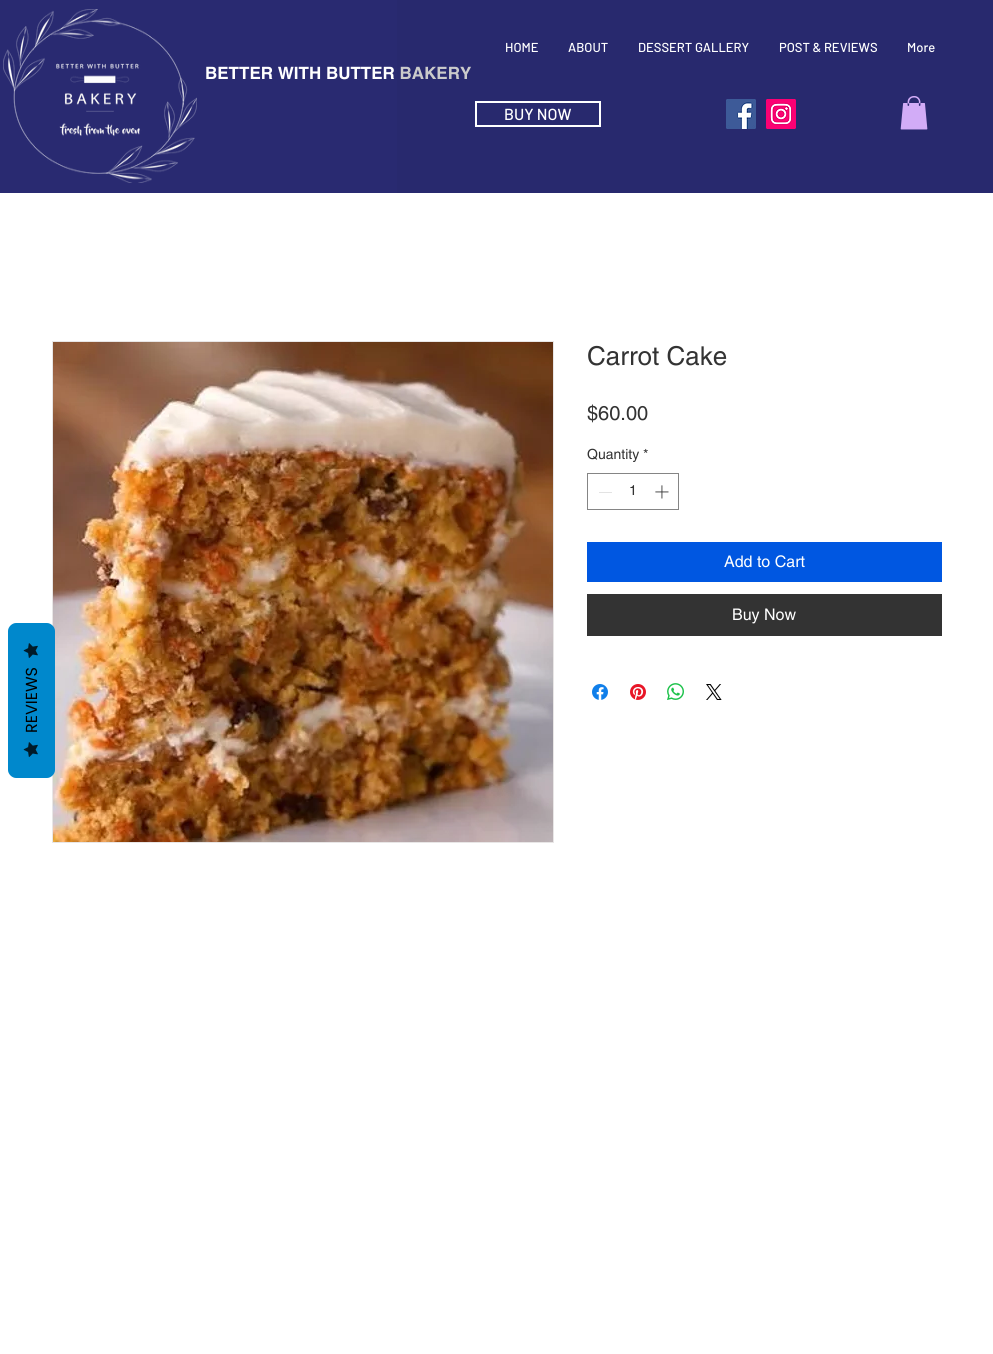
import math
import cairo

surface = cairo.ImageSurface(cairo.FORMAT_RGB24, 993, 1354)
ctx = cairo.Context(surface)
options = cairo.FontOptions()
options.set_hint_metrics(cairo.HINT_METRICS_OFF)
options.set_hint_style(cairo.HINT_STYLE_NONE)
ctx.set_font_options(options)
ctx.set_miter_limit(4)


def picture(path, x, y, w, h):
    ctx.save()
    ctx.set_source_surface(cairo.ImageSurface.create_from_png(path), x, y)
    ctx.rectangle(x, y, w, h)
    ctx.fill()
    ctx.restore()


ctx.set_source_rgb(1, 1, 1)
ctx.paint()
ctx.set_source_rgb(0.149, 0.153, 0.514)
ctx.rectangle(397, 0, 596, 193)
ctx.fill()
ctx.set_source_rgb(0.161, 0.165, 0.443)
ctx.rectangle(0, 0, 397, 193)
ctx.fill()
picture("img1.png", 3, 9, 194, 174)
ctx.select_font_face("helvetica", cairo.FONT_SLANT_NORMAL, cairo.FONT_WEIGHT_BOLD)
ctx.set_font_size(17)
ctx.set_source_rgb(1, 1, 1)
ctx.move_to(205, 79)
ctx.show_text("BETTER WITH BUTTER BAKERY")
ctx.set_source_rgba(0.2, 0.2, 0.2, 0.25)
ctx.rectangle(397, 0, 596, 193)
ctx.fill()
ctx.select_font_face("Barlow Medium")
ctx.set_font_size(13)
ctx.set_source_rgb(1, 1, 1)
ctx.move_to(505, 52)
ctx.show_text("HOME")
ctx.move_to(568, 52)
ctx.show_text("ABOUT")
ctx.move_to(638, 52)
ctx.show_text("DESSERT GALLERY")
ctx.move_to(779, 52)
ctx.show_text("POST & REVIEWS")
ctx.move_to(907, 52)
ctx.show_text("More")
ctx.rectangle(476, 102, 124, 24)
ctx.stroke()
ctx.set_font_size(16)
ctx.move_to(504, 120)
ctx.show_text("BUY NOW")
picture("img2.png", 726, 99, 30, 30)
picture("img3.png", 766, 99, 30, 30)
picture("img4.png", 900, 96, 28, 34)
ctx.rectangle(52.5, 341.5, 501, 501)
ctx.set_source_rgb(0.91, 0.902, 0.902)
ctx.set_line_width(1)
ctx.stroke()
picture("img5.png", 53, 342, 500, 500)
ctx.select_font_face("helvetica")
ctx.set_font_size(26)
ctx.set_source_rgb(0.2, 0.2, 0.2)
ctx.move_to(587, 365)
ctx.show_text("Carrot Cake")
ctx.set_font_size(20)
ctx.move_to(587, 420)
ctx.show_text("$60.00")
ctx.set_font_size(14)
ctx.move_to(587, 459)
ctx.show_text("Quantity *")
ctx.rectangle(587.5, 473.5, 91, 36)
ctx.set_source_rgb(0.522, 0.522, 0.522)
ctx.stroke()
ctx.set_source_rgb(0.89, 0.89, 0.89)
ctx.rectangle(599, 492, 13, 1)
ctx.fill()
ctx.set_source_rgb(0.2, 0.2, 0.2)
ctx.move_to(629, 495)
ctx.show_text("1")
picture("img6.png", 655, 485, 14, 14)
ctx.set_source_rgb(0, 0.341, 0.882)
ctx.rectangle(587, 542, 355, 40)
ctx.fill()
ctx.set_font_size(16)
ctx.set_source_rgb(1, 1, 1)
ctx.move_to(724, 567)
ctx.show_text("Add to Cart")
ctx.set_source_rgb(0.2, 0.2, 0.2)
ctx.rectangle(587, 594, 355, 42)
ctx.fill()
ctx.set_source_rgb(1, 1, 1)
ctx.move_to(732, 620)
ctx.show_text("Buy Now")
picture("img7.png", 592, 684, 16, 16)
picture("img8.png", 630, 684, 16, 16)
picture("img9.png", 667, 683, 17, 17)
picture("img10.png", 706, 684, 16, 16)
ctx.set_source_rgb(0, 0.533, 0.8)
ctx.new_path()
ctx.move_to(8, 770)
ctx.line_to(8, 631)
ctx.curve_to(8, 627, 12, 623, 16, 623)
ctx.line_to(47, 623)
ctx.curve_to(51, 623, 55, 627, 55, 631)
ctx.line_to(55, 770)
ctx.curve_to(55, 774, 51, 778, 47, 778)
ctx.line_to(16, 778)
ctx.curve_to(12, 778, 8, 774, 8, 770)
ctx.close_path()
ctx.fill()
picture("img11.png", 23, 643, 15, 15)
ctx.select_font_face("Poppins")
ctx.set_source_rgb(0, 0, 0)
ctx.save()
ctx.translate(37, 733)
ctx.rotate(-90 * math.pi / 180)
ctx.move_to(0, 0)
ctx.show_text("REVIEWS")
ctx.restore()
picture("img11.png", 23, 742, 15, 15)
surface.write_to_png("page.png")
